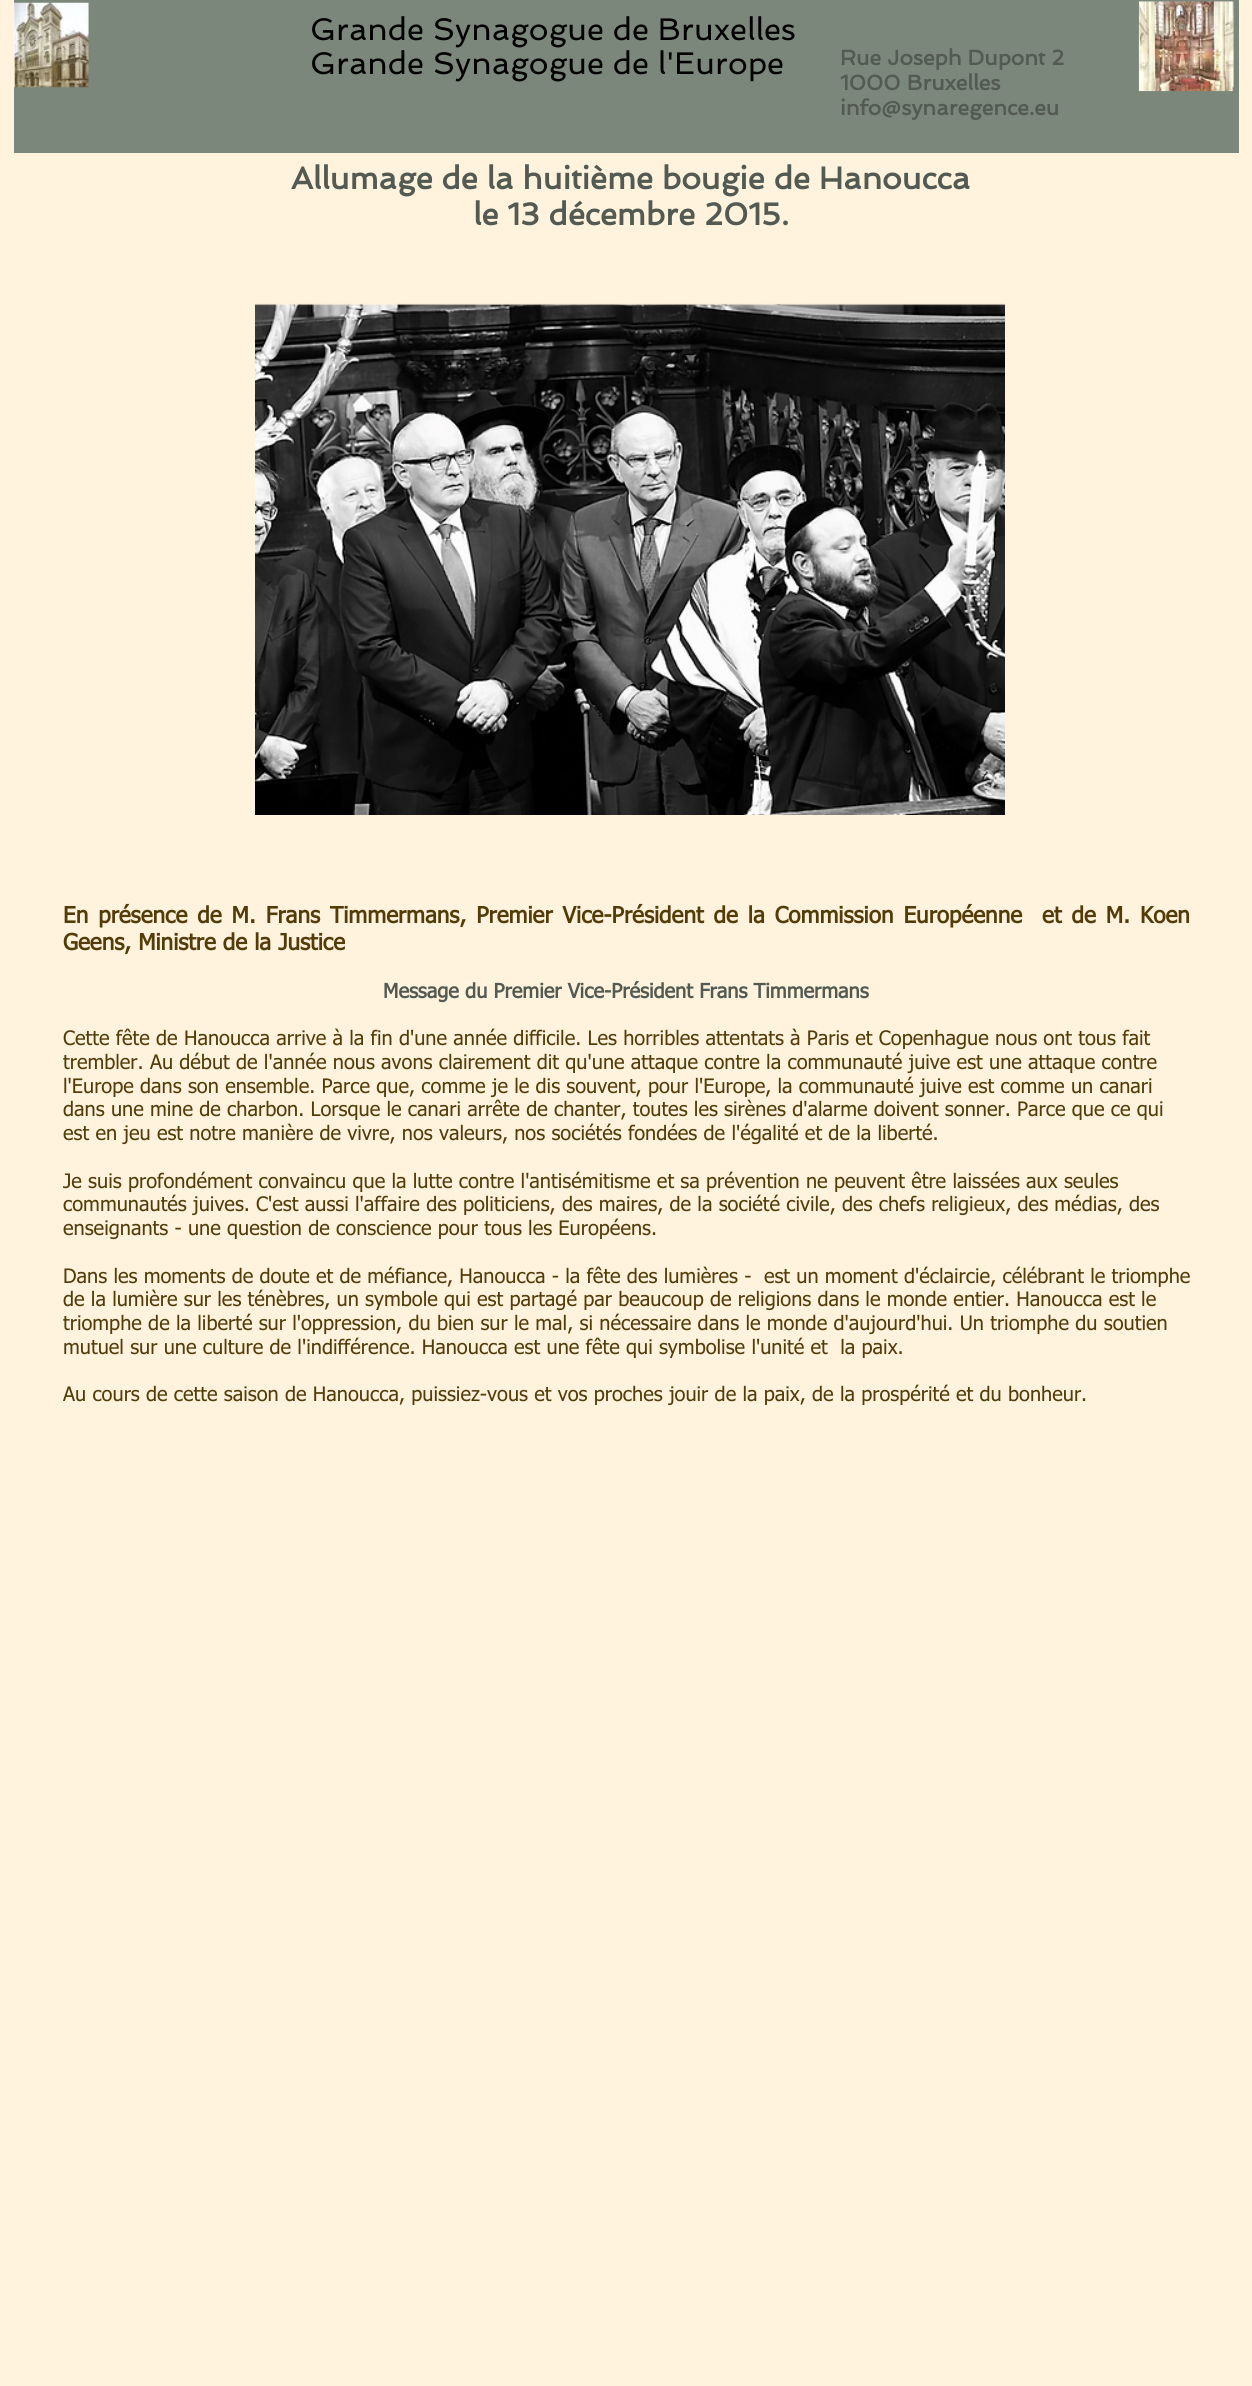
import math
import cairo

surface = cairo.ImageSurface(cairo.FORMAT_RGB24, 1252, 2386)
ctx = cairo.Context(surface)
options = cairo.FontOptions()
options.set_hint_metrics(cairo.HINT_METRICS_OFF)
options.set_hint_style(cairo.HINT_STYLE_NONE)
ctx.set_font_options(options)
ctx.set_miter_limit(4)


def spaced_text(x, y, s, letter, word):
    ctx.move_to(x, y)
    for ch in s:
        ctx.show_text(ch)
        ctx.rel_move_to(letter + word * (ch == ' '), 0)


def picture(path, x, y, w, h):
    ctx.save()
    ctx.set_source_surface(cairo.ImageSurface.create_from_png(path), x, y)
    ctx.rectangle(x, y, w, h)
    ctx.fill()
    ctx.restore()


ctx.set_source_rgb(1, 0.953, 0.871)
ctx.paint()
ctx.set_source_rgb(0.482, 0.529, 0.478)
ctx.rectangle(14, 0, 1225, 153)
ctx.fill()
picture("img1.png", 14, 2, 75, 86)
ctx.select_font_face("Spinnaker")
ctx.set_font_size(31.25)
ctx.set_source_rgb(0, 0, 0)
ctx.move_to(310, 40)
ctx.show_text("Grande Synagogue de Bruxelles")
ctx.move_to(310, 74)
ctx.show_text("Grande Synagogue de l'Europe")
ctx.select_font_face("Spinnaker", cairo.FONT_SLANT_NORMAL, cairo.FONT_WEIGHT_BOLD)
ctx.set_font_size(21.25)
ctx.set_source_rgb(0.322, 0.353, 0.318)
ctx.move_to(840, 65)
ctx.show_text("Rue Joseph Dupont 2")
ctx.move_to(840, 90)
ctx.show_text("1000 Bruxelles")
ctx.move_to(840, 115)
ctx.show_text("info@synaregence.eu")
picture("img2.png", 1138, 1, 96, 91)
ctx.set_font_size(31.25)
ctx.move_to(291, 189)
ctx.show_text("Allumage de la huitième bougie de Hanoucca")
ctx.move_to(473, 225)
ctx.show_text("le 13 décembre 2015.")
picture("img3.png", 255, 303, 750, 512)
ctx.select_font_face("tahoma", cairo.FONT_SLANT_NORMAL, cairo.FONT_WEIGHT_BOLD)
ctx.set_font_size(22.5)
ctx.set_source_rgb(0.329, 0.235, 0.039)
spaced_text(63, 923, "En présence de M. Frans Timmermans, Premier Vice-Président de la Commission Européenne  et de M. Koen", 0, 3)
ctx.move_to(63, 950)
ctx.show_text("Geens, Ministre de la Justice")
ctx.set_font_size(20)
ctx.set_source_rgb(0.322, 0.353, 0.318)
ctx.move_to(383, 998)
ctx.show_text("Message du Premier Vice-Président Frans Timmermans")
ctx.select_font_face("tahoma")
ctx.set_source_rgb(0.329, 0.235, 0.039)
ctx.move_to(63, 1045)
ctx.show_text("Cette fête de Hanoucca arrive à la fin d'une année difficile. Les horribles attentats à Paris et Copenhague nous ont tous fait")
ctx.move_to(63, 1069)
ctx.show_text("trembler. Au début de l'année nous avons clairement dit qu'une attaque contre la communauté juive est une attaque contre")
ctx.move_to(63, 1093)
ctx.show_text("l'Europe dans son ensemble. Parce que, comme je le dis souvent, pour l'Europe, la communauté juive est comme un canari")
ctx.move_to(63, 1116)
ctx.show_text("dans une mine de charbon. Lorsque le canari arrête de chanter, toutes les sirènes d'alarme doivent sonner. Parce que ce qui")
ctx.move_to(63, 1140)
ctx.show_text("est en jeu est notre manière de vivre, nos valeurs, nos sociétés fondées de l'égalité et de la liberté.")
ctx.move_to(63, 1188)
ctx.show_text("Je suis profondément convaincu que la lutte contre l'antisémitisme et sa prévention ne peuvent être laissées aux seules")
ctx.move_to(63, 1211)
ctx.show_text("communautés juives. C'est aussi l'affaire des politiciens, des maires, de la société civile, des chefs religieux, des médias, des")
ctx.move_to(63, 1235)
ctx.show_text("enseignants - une question de conscience pour tous les Européens.")
ctx.move_to(63, 1283)
ctx.show_text("Dans les moments de doute et de méfiance, Hanoucca - la fête des lumières -  est un moment d'éclaircie, célébrant le triomphe")
ctx.move_to(63, 1306)
ctx.show_text("de la lumière sur les ténèbres, un symbole qui est partagé par beaucoup de religions dans le monde entier. Hanoucca est le")
ctx.move_to(63, 1330)
ctx.show_text("triomphe de la liberté sur l'oppression, du bien sur le mal, si nécessaire dans le monde d'aujourd'hui. Un triomphe du soutien")
ctx.move_to(63, 1354)
ctx.show_text("mutuel sur une culture de l'indifférence. Hanoucca est une fête qui symbolise l'unité et  la paix.")
ctx.move_to(63, 1401)
ctx.show_text("Au cours de cette saison de Hanoucca, puissiez-vous et vos proches jouir de la paix, de la prospérité et du bonheur.")
surface.write_to_png("page.png")
